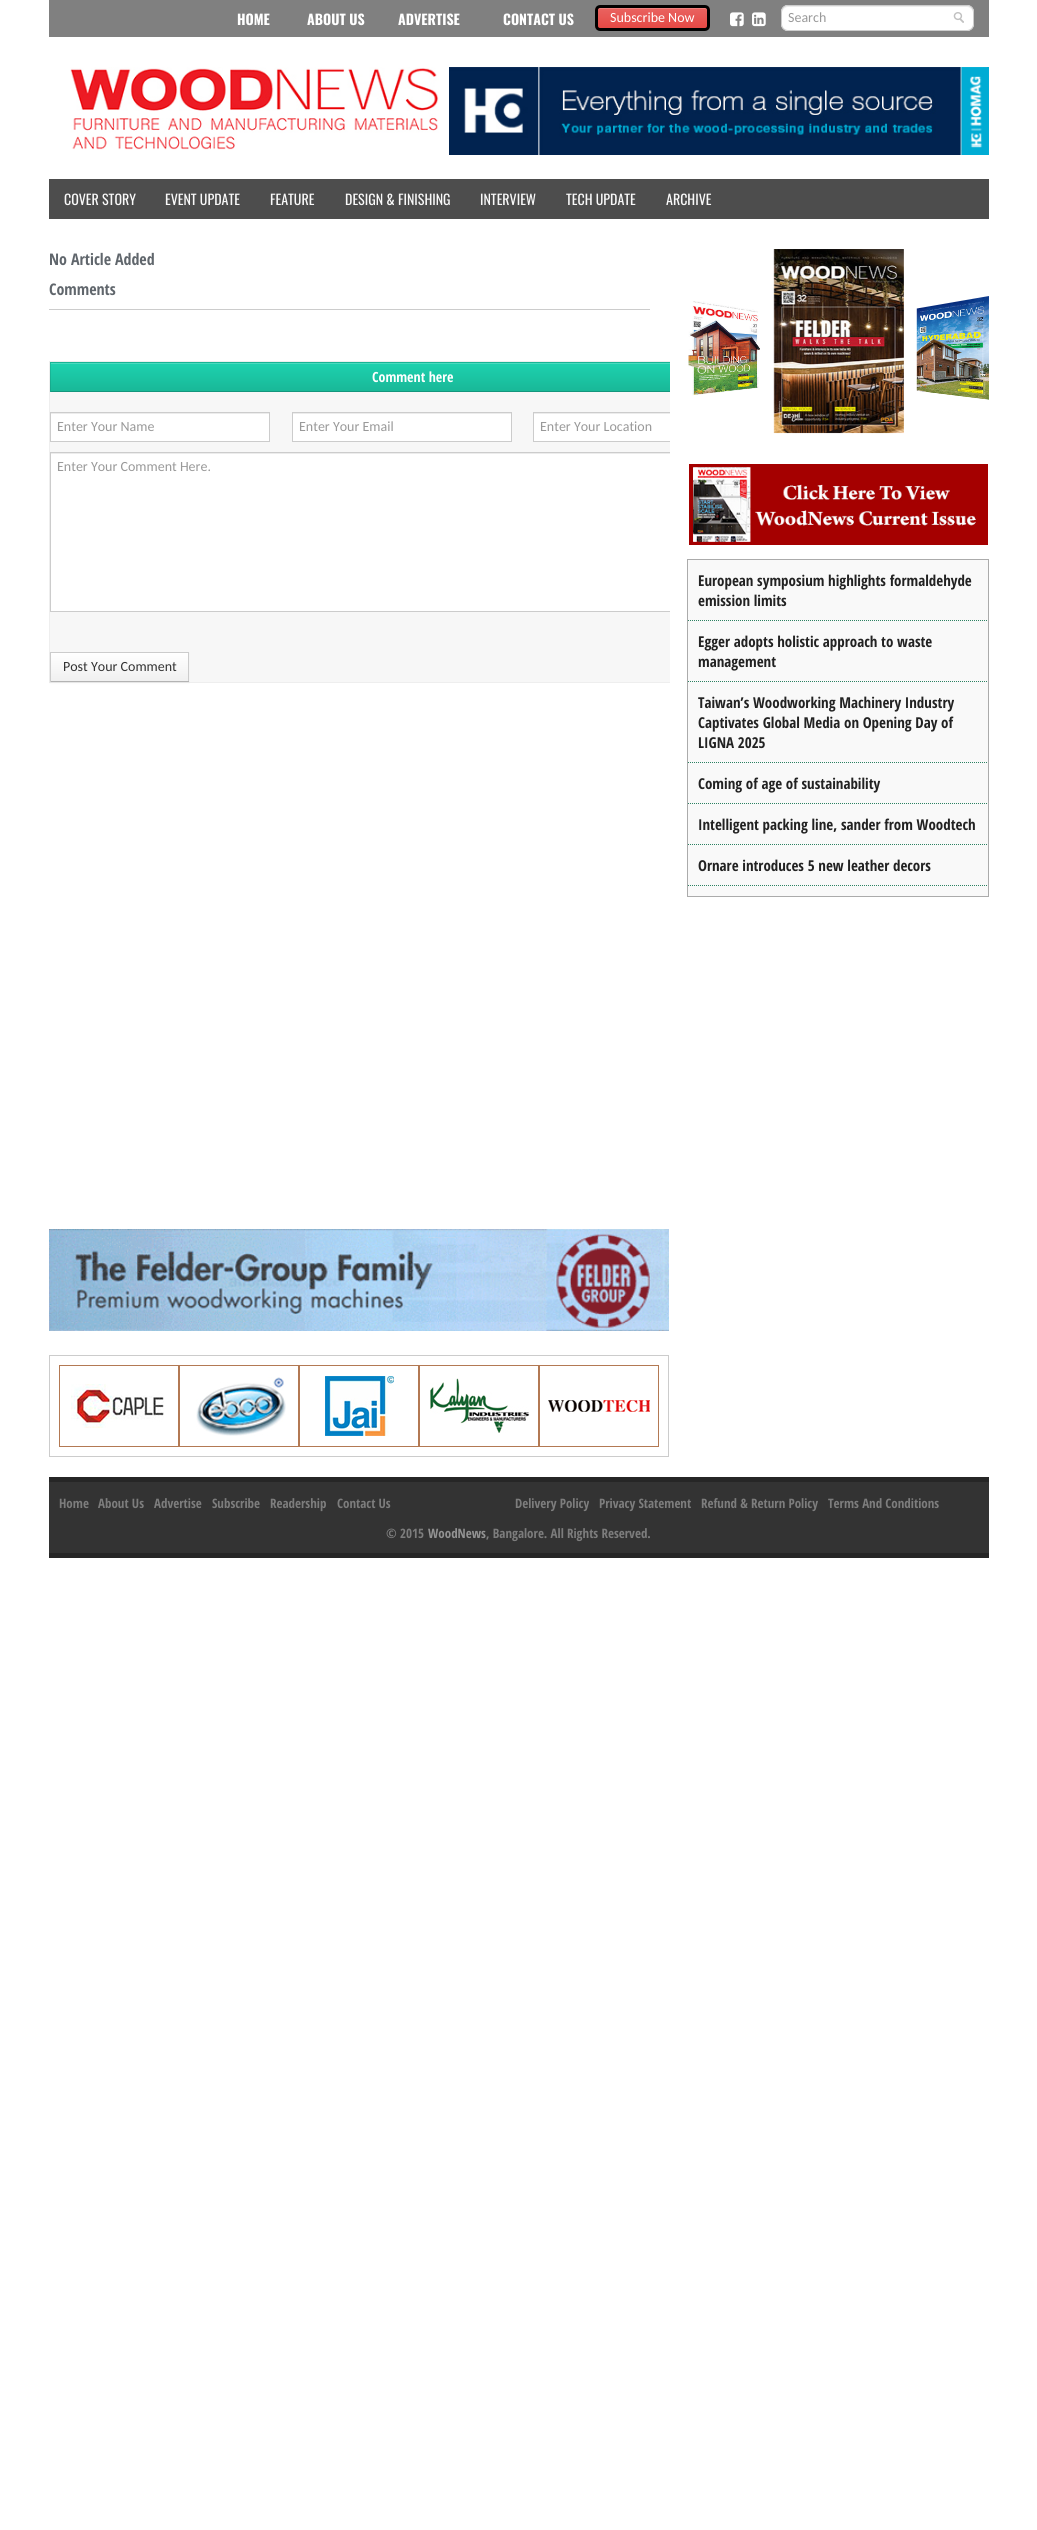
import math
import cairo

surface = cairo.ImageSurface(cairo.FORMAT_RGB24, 1037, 2530)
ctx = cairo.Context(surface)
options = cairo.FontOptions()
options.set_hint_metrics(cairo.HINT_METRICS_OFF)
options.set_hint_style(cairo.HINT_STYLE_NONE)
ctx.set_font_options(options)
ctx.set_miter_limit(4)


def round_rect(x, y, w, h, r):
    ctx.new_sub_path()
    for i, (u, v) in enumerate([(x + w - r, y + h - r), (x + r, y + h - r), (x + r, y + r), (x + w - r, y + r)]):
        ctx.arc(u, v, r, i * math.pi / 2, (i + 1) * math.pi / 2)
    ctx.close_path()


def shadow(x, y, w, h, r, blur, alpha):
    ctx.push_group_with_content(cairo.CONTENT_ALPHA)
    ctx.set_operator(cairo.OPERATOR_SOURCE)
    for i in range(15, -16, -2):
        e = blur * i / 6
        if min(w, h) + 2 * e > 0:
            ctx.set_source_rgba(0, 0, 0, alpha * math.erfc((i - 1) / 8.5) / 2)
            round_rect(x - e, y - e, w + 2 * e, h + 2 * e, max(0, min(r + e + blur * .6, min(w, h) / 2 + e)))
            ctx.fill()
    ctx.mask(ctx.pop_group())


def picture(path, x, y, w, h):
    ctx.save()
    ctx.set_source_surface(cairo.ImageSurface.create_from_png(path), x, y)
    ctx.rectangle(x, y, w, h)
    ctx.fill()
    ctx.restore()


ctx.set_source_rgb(1, 1, 1)
ctx.paint()
ctx.set_source_rgb(0.502, 0.502, 0.502)
ctx.rectangle(49, 0, 940, 37)
ctx.fill()
ctx.select_font_face("Oswald", cairo.FONT_SLANT_NORMAL, cairo.FONT_WEIGHT_BOLD)
ctx.set_font_size(14)
ctx.set_source_rgb(1, 1, 1)
ctx.move_to(237, 25)
ctx.show_text("HOME")
ctx.move_to(307, 25)
ctx.show_text("ABOUT US")
ctx.move_to(398, 25)
ctx.show_text("ADVERTISE")
ctx.move_to(503, 25)
ctx.show_text("CONTACT US")
ctx.save()
round_rect(595, 5, 115, 26, 5)
ctx.clip()
gradient = cairo.LinearGradient(653, 8, 653, 28)
gradient.add_color_stop_rgba(0, 0.914, 0.388, 0.376, 1)
gradient.add_color_stop_rgba(1, 0.902, 0.286, 0.271, 1)
ctx.set_source(gradient)
ctx.rectangle(595, 8, 115, 20)
ctx.fill()
ctx.restore()
ctx.set_source_rgb(0.929, 0.506, 0.498)
ctx.new_path()
ctx.move_to(600, 9)
ctx.line_to(705, 9)
ctx.curve_to(706, 9, 707, 10, 707, 11)
ctx.curve_to(707, 10, 707, 8, 705, 8)
ctx.line_to(600, 8)
ctx.curve_to(598, 8, 598, 10, 598, 11)
ctx.curve_to(598, 10, 599, 9, 600, 9)
ctx.close_path()
ctx.fill()
round_rect(596.5, 6.5, 112, 23, 3.5)
ctx.set_source_rgb(0, 0, 0)
ctx.set_line_width(3)
ctx.stroke()
ctx.select_font_face("Carlito")
ctx.set_source_rgb(1, 1, 1)
ctx.move_to(610, 22)
ctx.show_text("Subscribe Now")
picture("img1.png", 730, 12, 14, 15)
picture("img2.png", 752, 12, 14, 15)
round_rect(781, 5, 193, 26, 7)
ctx.fill()
picture("img3.png", 953, 12, 11, 11)
ctx.set_source_rgb(0.925, 0.925, 0.925)
ctx.new_path()
ctx.move_to(788, 7)
ctx.line_to(967, 7)
ctx.curve_to(970, 7, 973, 10, 973, 13)
ctx.line_to(973, 12)
ctx.curve_to(973, 9, 970, 6, 967, 6)
ctx.line_to(788, 6)
ctx.curve_to(785, 6, 782, 9, 782, 12)
ctx.line_to(782, 13)
ctx.curve_to(782, 10, 785, 7, 788, 7)
ctx.close_path()
ctx.fill()
round_rect(781.5, 5.5, 192, 25, 6.5)
ctx.set_source_rgb(0.8, 0.8, 0.8)
ctx.set_line_width(1)
ctx.stroke()
ctx.set_source_rgb(0.6, 0.6, 0.6)
ctx.move_to(788, 22)
ctx.show_text("Search")
picture("img4.png", 70, 67, 369, 83)
picture("img5.png", 449, 67, 540, 88)
ctx.set_source_rgb(0.302, 0.302, 0.302)
ctx.rectangle(49, 179, 940, 40)
ctx.fill()
ctx.select_font_face("Oswald")
ctx.set_source_rgb(0.973, 0.973, 0.973)
ctx.move_to(64, 205)
ctx.show_text("COVER STORY")
ctx.move_to(165, 205)
ctx.show_text("EVENT UPDATE")
ctx.move_to(270, 205)
ctx.show_text("FEATURE")
ctx.move_to(345, 205)
ctx.show_text("DESIGN & FINISHING")
ctx.move_to(480, 205)
ctx.show_text("INTERVIEW")
ctx.move_to(566, 205)
ctx.show_text("TECH UPDATE")
ctx.move_to(666, 205)
ctx.show_text("ARCHIVE")
ctx.select_font_face("Open Sans Condensed", cairo.FONT_SLANT_NORMAL, cairo.FONT_WEIGHT_BOLD)
ctx.set_font_size(16)
ctx.set_source_rgb(0.376, 0.4, 0.424)
ctx.move_to(49, 265)
ctx.show_text("No Article Added")
ctx.set_source_rgb(0.8, 0.8, 0.8)
ctx.rectangle(49, 309, 601, 1)
ctx.fill()
ctx.set_source_rgb(0.376, 0.4, 0.424)
ctx.move_to(49, 295)
ctx.show_text("Comments")
ctx.set_source_rgb(0.965, 0.965, 0.965)
ctx.rectangle(50, 392, 620, 290)
ctx.fill()
ctx.set_source_rgb(0.933, 0.933, 0.933)
ctx.rectangle(49, 361, 621, 1)
ctx.fill()
ctx.rectangle(49, 682, 621, 1)
ctx.fill()
ctx.rectangle(49, 361, 1, 322)
ctx.fill()
ctx.set_source_rgb(0.11, 0.784, 0.651)
ctx.rectangle(50, 362, 1, 30)
ctx.fill()
gradient = cairo.LinearGradient(413, 363, 413, 391)
gradient.add_color_stop_rgba(0, 0.114, 0.824, 0.686, 1)
gradient.add_color_stop_rgba(1, 0.098, 0.722, 0.596, 1)
ctx.set_source(gradient)
ctx.rectangle(50, 363, 620, 28)
ctx.fill()
ctx.set_source_rgb(0.29, 0.859, 0.749)
ctx.rectangle(51, 363, 619, 1)
ctx.fill()
ctx.save()
ctx.rectangle(49, 249, 621, 960)
ctx.clip()
ctx.set_source_rgb(0.098, 0.706, 0.584)
ctx.new_path()
ctx.move_to(50, 362)
ctx.line_to(776, 362)
ctx.line_to(775, 363)
ctx.line_to(51, 363)
ctx.close_path()
ctx.fill()
ctx.set_source_rgb(0.082, 0.588, 0.49)
ctx.new_path()
ctx.move_to(776, 392)
ctx.line_to(50, 392)
ctx.line_to(51, 391)
ctx.line_to(775, 391)
ctx.close_path()
ctx.fill()
ctx.restore()
ctx.set_source_rgba(0, 0, 0, 0.1)
ctx.new_path()
ctx.move_to(50, 392)
ctx.line_to(50, 362)
ctx.line_to(51, 363)
ctx.line_to(51, 391)
ctx.close_path()
ctx.fill()
ctx.set_font_size(14)
ctx.set_source_rgb(1, 1, 1)
ctx.move_to(372, 382)
ctx.show_text("Comment here")
ctx.rectangle(51, 414, 218, 27)
ctx.fill()
ctx.set_source_rgb(0.925, 0.925, 0.925)
ctx.rectangle(51, 413, 218, 1)
ctx.fill()
ctx.rectangle(50.5, 412.5, 219, 29)
ctx.set_source_rgb(0.8, 0.8, 0.8)
ctx.stroke()
ctx.select_font_face("Carlito")
ctx.set_source_rgb(0.6, 0.6, 0.6)
ctx.move_to(57, 431)
ctx.show_text("Enter Your Name")
ctx.set_source_rgb(1, 1, 1)
ctx.rectangle(293, 414, 218, 27)
ctx.fill()
ctx.set_source_rgb(0.925, 0.925, 0.925)
ctx.rectangle(293, 413, 218, 1)
ctx.fill()
ctx.rectangle(292.5, 412.5, 219, 29)
ctx.set_source_rgb(0.8, 0.8, 0.8)
ctx.stroke()
ctx.set_source_rgb(0.6, 0.6, 0.6)
ctx.move_to(299, 431)
ctx.show_text("Enter Your Email")
ctx.set_source_rgb(1, 1, 1)
ctx.rectangle(534, 414, 136, 27)
ctx.fill()
ctx.set_source_rgb(0.925, 0.925, 0.925)
ctx.rectangle(534, 413, 136, 1)
ctx.fill()
ctx.save()
ctx.rectangle(49, 249, 621, 960)
ctx.clip()
ctx.rectangle(533.5, 412.5, 219, 29)
ctx.set_source_rgb(0.8, 0.8, 0.8)
ctx.stroke()
ctx.restore()
ctx.set_source_rgb(0.6, 0.6, 0.6)
ctx.move_to(540, 431)
ctx.show_text("Enter Your Location")
ctx.set_source_rgb(1, 1, 1)
ctx.rectangle(51, 454, 619, 157)
ctx.fill()
ctx.set_source_rgb(0.925, 0.925, 0.925)
ctx.rectangle(51, 453, 619, 1)
ctx.fill()
ctx.save()
ctx.rectangle(49, 249, 621, 960)
ctx.clip()
ctx.rectangle(50.5, 452.5, 713, 159)
ctx.set_source_rgb(0.8, 0.8, 0.8)
ctx.stroke()
ctx.restore()
ctx.set_source_rgb(0.6, 0.6, 0.6)
ctx.move_to(57, 471)
ctx.show_text("Enter Your Comment Here.")
ctx.set_source_rgb(0, 0, 0)
shadow(50, 653, 139, 30, 0, 1, 0.05)
gradient = cairo.LinearGradient(120, 653, 120, 681)
gradient.add_color_stop_rgba(0, 1, 1, 1, 1)
gradient.add_color_stop_rgba(1, 0.941, 0.941, 0.941, 1)
ctx.set_source(gradient)
ctx.rectangle(51, 653, 137, 28)
ctx.fill()
ctx.set_source_rgb(0.8, 0.8, 0.8)
ctx.rectangle(50, 652, 139, 1)
ctx.fill()
ctx.rectangle(188, 652, 1, 30)
ctx.fill()
ctx.set_source_rgb(0.702, 0.702, 0.702)
ctx.rectangle(50, 681, 139, 1)
ctx.fill()
ctx.set_source_rgb(0.8, 0.8, 0.8)
ctx.rectangle(50, 652, 1, 30)
ctx.fill()
ctx.set_source_rgb(0.2, 0.2, 0.2)
ctx.move_to(63, 671)
ctx.show_text("Post Your Comment")
picture("img6.png", 49, 1229, 620, 102)
ctx.rectangle(49.5, 1355.5, 619, 101)
ctx.set_source_rgb(0.8, 0.8, 0.8)
ctx.stroke()
ctx.rectangle(59.5, 1365.5, 119, 81)
ctx.set_source_rgb(0.702, 0.475, 0.325)
ctx.stroke()
picture("img7.png", 71, 1384, 93, 44)
ctx.rectangle(179.5, 1365.5, 119, 81)
ctx.stroke()
picture("img8.png", 196, 1377, 90, 59)
ctx.rectangle(299.5, 1365.5, 119, 81)
ctx.stroke()
picture("img9.png", 325, 1376, 69, 61)
ctx.rectangle(419.5, 1365.5, 119, 81)
ctx.stroke()
picture("img10.png", 430, 1378, 100, 55)
ctx.rectangle(539.5, 1365.5, 119, 81)
ctx.stroke()
picture("img11.png", 548, 1400, 104, 12)
picture("img12.png", 688, 301, 72, 95)
picture("img13.png", 773, 249, 131, 185)
picture("img14.png", 916, 296, 73, 104)
picture("img15.png", 689, 464, 299, 81)
ctx.rectangle(687.5, 559.5, 301, 337)
ctx.set_source_rgb(0.671, 0.671, 0.671)
ctx.stroke()
ctx.set_source_rgb(0.976, 0.976, 0.976)
ctx.rectangle(688, 560, 300, 336)
ctx.fill()
ctx.new_path()
ctx.move_to(688, 620.5)
ctx.line_to(988, 620.5)
ctx.set_source_rgb(0.173, 0.506, 0.384)
ctx.set_dash([1, 1])
ctx.stroke()
ctx.select_font_face("Open Sans Condensed", cairo.FONT_SLANT_NORMAL, cairo.FONT_WEIGHT_BOLD)
ctx.set_font_size(15)
ctx.set_source_rgb(0.133, 0.133, 0.133)
ctx.move_to(698, 586)
ctx.show_text("European symposium highlights formaldehyde")
ctx.move_to(698, 606)
ctx.show_text("emission limits")
ctx.new_path()
ctx.move_to(688, 681.5)
ctx.line_to(988, 681.5)
ctx.set_source_rgb(0.173, 0.506, 0.384)
ctx.stroke()
ctx.set_source_rgb(0.133, 0.133, 0.133)
ctx.move_to(698, 647)
ctx.show_text("Egger adopts holistic approach to waste")
ctx.move_to(698, 667)
ctx.show_text("management")
ctx.new_path()
ctx.move_to(688, 762.5)
ctx.line_to(988, 762.5)
ctx.set_source_rgb(0.173, 0.506, 0.384)
ctx.stroke()
ctx.set_source_rgb(0.133, 0.133, 0.133)
ctx.move_to(698, 708)
ctx.show_text("Taiwan’s Woodworking Machinery Industry")
ctx.move_to(698, 728)
ctx.show_text("Captivates Global Media on Opening Day of")
ctx.move_to(698, 748)
ctx.show_text("LIGNA 2025")
ctx.new_path()
ctx.move_to(688, 803.5)
ctx.line_to(988, 803.5)
ctx.set_source_rgb(0.173, 0.506, 0.384)
ctx.stroke()
ctx.set_source_rgb(0.133, 0.133, 0.133)
ctx.move_to(698, 789)
ctx.show_text("Coming of age of sustainability")
ctx.new_path()
ctx.move_to(688, 844.5)
ctx.line_to(988, 844.5)
ctx.set_source_rgb(0.173, 0.506, 0.384)
ctx.stroke()
ctx.set_source_rgb(0.133, 0.133, 0.133)
ctx.move_to(698, 830)
ctx.show_text("Intelligent packing line, sander from Woodtech")
ctx.new_path()
ctx.move_to(688, 885.5)
ctx.line_to(988, 885.5)
ctx.set_source_rgb(0.173, 0.506, 0.384)
ctx.stroke()
ctx.set_source_rgb(0.133, 0.133, 0.133)
ctx.move_to(698, 871)
ctx.show_text("Ornare introduces 5 new leather decors")
ctx.set_source_rgb(0.2, 0.2, 0.2)
ctx.rectangle(49, 1482, 940, 71)
ctx.fill()
ctx.set_source_rgb(0.149, 0.149, 0.149)
ctx.rectangle(49, 1477, 940, 5)
ctx.fill()
ctx.rectangle(49, 1553, 940, 5)
ctx.fill()
ctx.set_font_size(13)
ctx.set_source_rgb(0.49, 0.49, 0.49)
ctx.move_to(59, 1508)
ctx.show_text("Home")
ctx.move_to(98, 1508)
ctx.show_text("About Us")
ctx.move_to(154, 1508)
ctx.show_text("Advertise")
ctx.move_to(212, 1508)
ctx.show_text("Subscribe")
ctx.move_to(270, 1508)
ctx.show_text("Readership")
ctx.move_to(337, 1508)
ctx.show_text("Contact Us")
ctx.move_to(515, 1508)
ctx.show_text("Delivery Policy")
ctx.move_to(599, 1508)
ctx.show_text("Privacy Statement")
ctx.move_to(701, 1508)
ctx.show_text("Refund & Return Policy")
ctx.move_to(828, 1508)
ctx.show_text("Terms And Conditions")
ctx.move_to(386, 1538)
ctx.show_text("© 2015")
ctx.set_source_rgb(0.576, 0.576, 0.576)
ctx.move_to(428, 1538)
ctx.show_text("WoodNews")
ctx.set_source_rgb(0.49, 0.49, 0.49)
ctx.move_to(486, 1538)
ctx.show_text(", Bangalore. All Rights Reserved.")
surface.write_to_png("page.png")
